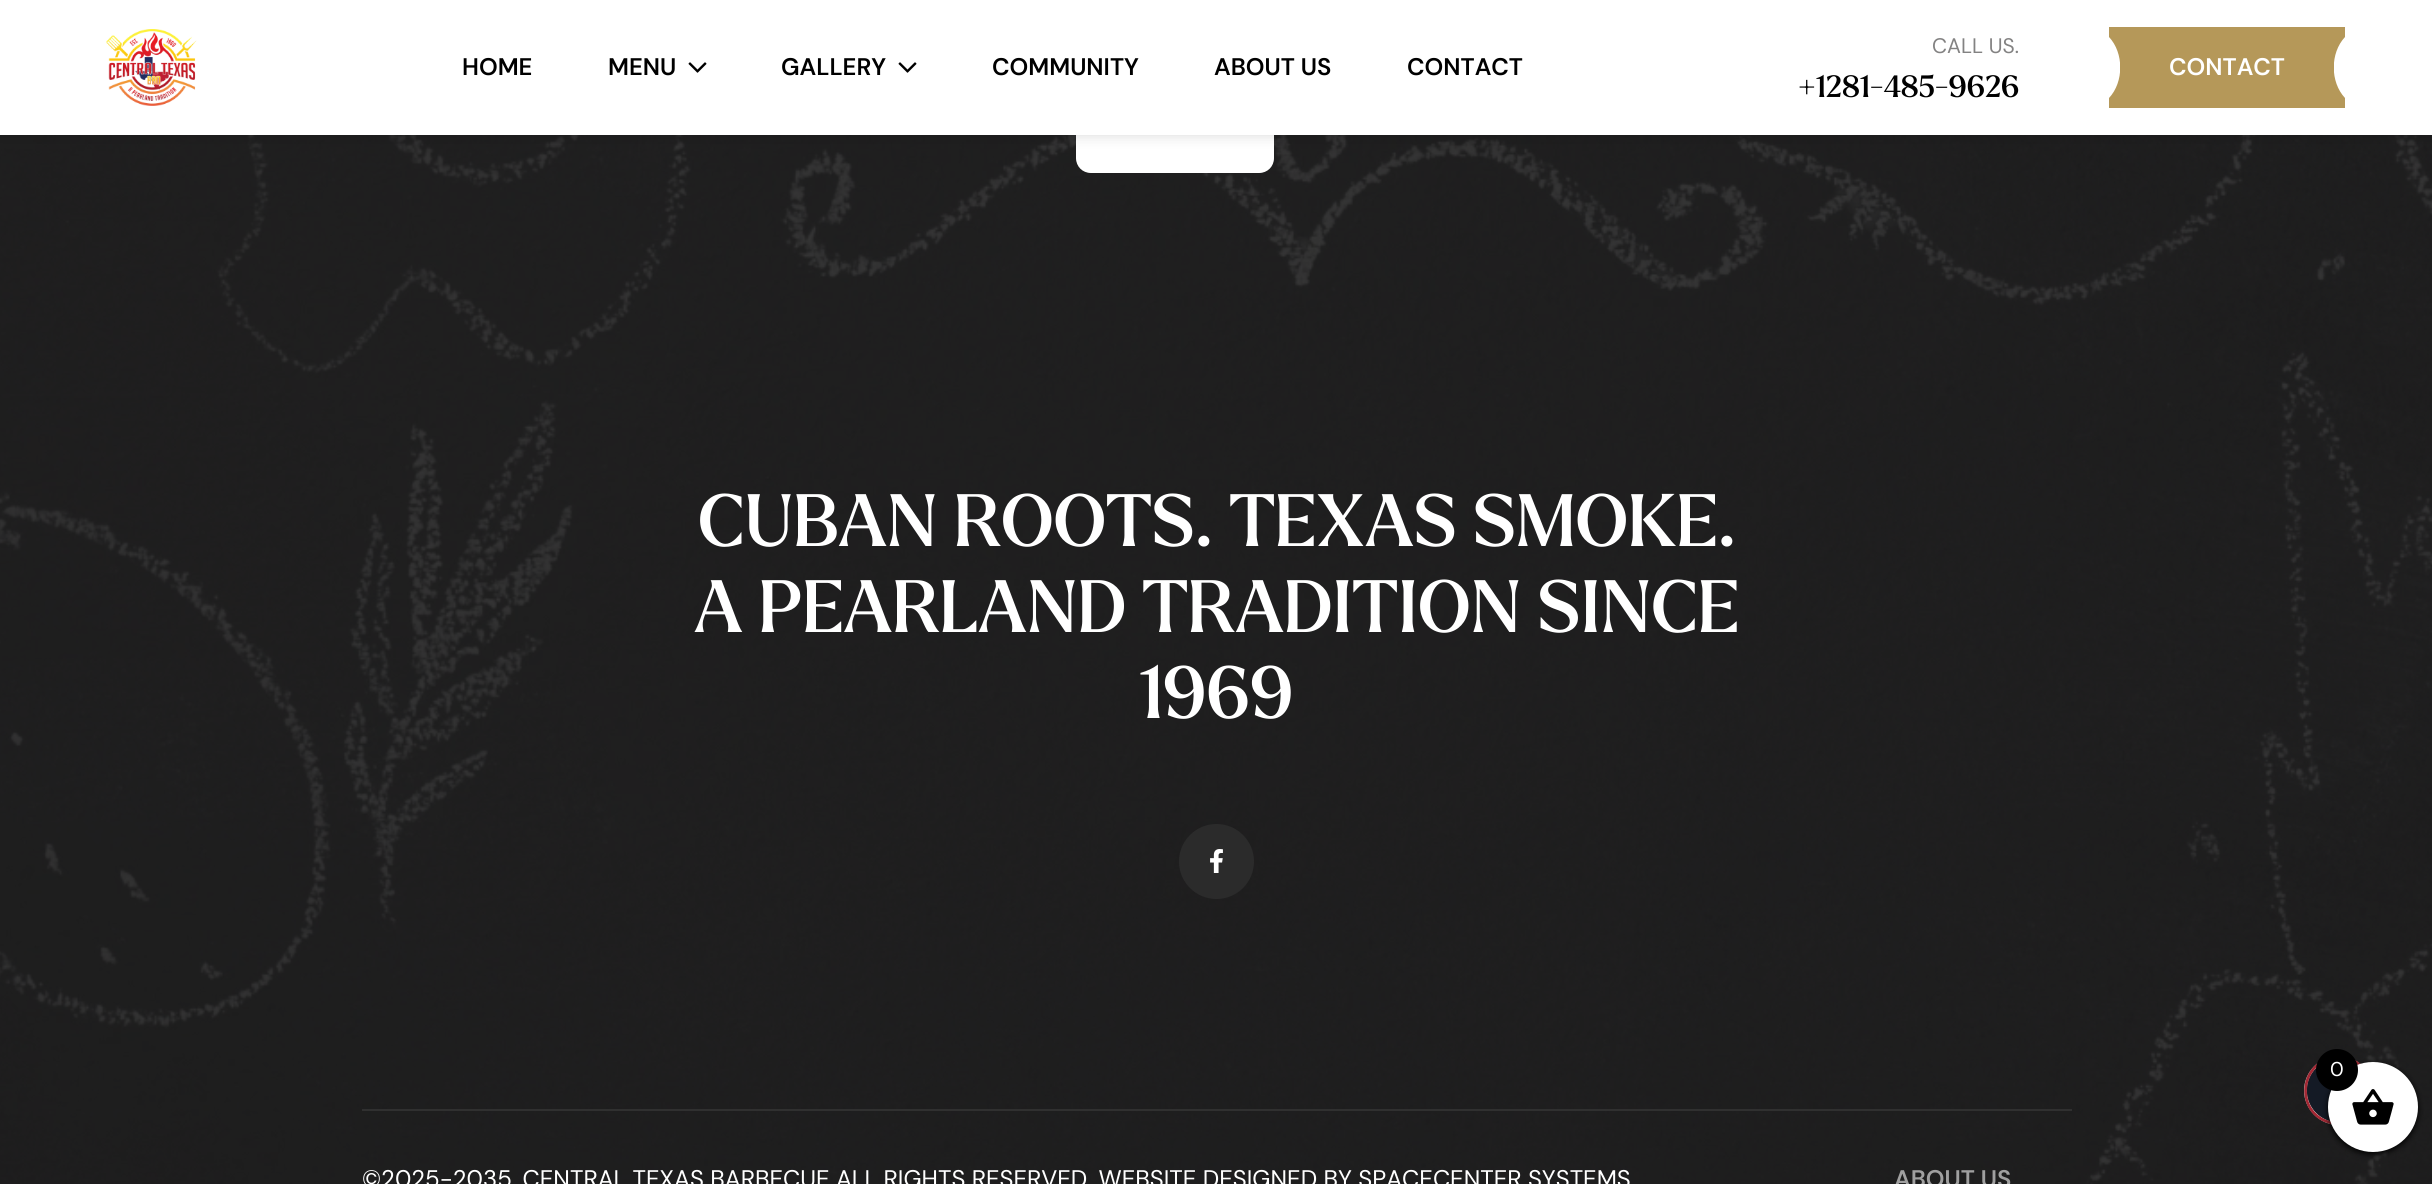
import math
import cairo

surface = cairo.ImageSurface(cairo.FORMAT_RGB24, 2432, 1184)
ctx = cairo.Context(surface)
options = cairo.FontOptions()
options.set_hint_metrics(cairo.HINT_METRICS_OFF)
options.set_hint_style(cairo.HINT_STYLE_NONE)
ctx.set_font_options(options)
ctx.set_miter_limit(4)


def round_rect(x, y, w, h, r):
    ctx.new_sub_path()
    for i, (u, v) in enumerate([(x + w - r, y + h - r), (x + r, y + h - r), (x + r, y + r), (x + w - r, y + r)]):
        ctx.arc(u, v, r, i * math.pi / 2, (i + 1) * math.pi / 2)
    ctx.close_path()


def shadow(x, y, w, h, r, blur, alpha):
    ctx.push_group_with_content(cairo.CONTENT_ALPHA)
    ctx.set_operator(cairo.OPERATOR_SOURCE)
    for i in range(15, -16, -2):
        e = blur * i / 6
        if min(w, h) + 2 * e > 0:
            ctx.set_source_rgba(0, 0, 0, alpha * math.erfc((i - 1) / 8.5) / 2)
            round_rect(x - e, y - e, w + 2 * e, h + 2 * e, max(0, min(r + e + blur * .6, min(w, h) / 2 + e)))
            ctx.fill()
    ctx.mask(ctx.pop_group())


def picture(path, x, y, w, h):
    ctx.save()
    ctx.set_source_surface(cairo.ImageSurface.create_from_png(path), x, y)
    ctx.rectangle(x, y, w, h)
    ctx.fill()
    ctx.restore()


ctx.set_source_rgb(0.118, 0.118, 0.118)
ctx.paint()
picture("img3.png", 0, 135, 2432, 1049)
ctx.set_source_rgb(1, 1, 1)
ctx.new_path()
ctx.move_to(1076, -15)
ctx.line_to(1274, -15)
ctx.line_to(1274, 158)
ctx.curve_to(1274, 166.5, 1267.5, 173, 1259, 173)
ctx.line_to(1091, 173)
ctx.curve_to(1082.5, 173, 1076, 166.5, 1076, 158)
ctx.close_path()
ctx.fill()
ctx.set_source_rgb(0, 0, 0)
shadow(0, 0, 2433, 135, 0, 7.5, 0.15)
ctx.set_source_rgb(1, 1, 1)
ctx.rectangle(0, 0, 2432, 135)
ctx.fill()
picture("img1.png", 106, 29, 91, 77)
ctx.select_font_face("DM Sans SemiBold")
ctx.set_font_size(24)
ctx.set_source_rgb(0, 0, 0)
ctx.move_to(462, 75)
ctx.show_text("HOME")
ctx.move_to(608, 75)
ctx.show_text("MENU")
picture("img2.png", 688, 62, 19, 11)
ctx.move_to(781, 75)
ctx.show_text("GALLERY")
picture("img2.png", 898, 62, 19, 11)
ctx.move_to(992, 75)
ctx.show_text("COMMUNITY")
ctx.move_to(1214, 75)
ctx.show_text("ABOUT US")
ctx.move_to(1407, 75)
ctx.show_text("CONTACT")
ctx.select_font_face("DM Sans")
ctx.set_font_size(21)
ctx.set_source_rgb(0.514, 0.51, 0.51)
ctx.move_to(1932, 53)
ctx.show_text("CALL US.")
ctx.select_font_face("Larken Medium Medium")
ctx.set_font_size(30)
ctx.set_source_rgb(0, 0, 0)
ctx.move_to(1798, 97)
ctx.show_text("+1281-485-9626")
ctx.set_source_rgb(0.71, 0.596, 0.349)
ctx.rectangle(2120, 27, 214, 81)
ctx.fill()
ctx.new_path()
ctx.move_to(2121, 27)
ctx.line_to(2121, 108)
ctx.line_to(2109, 108)
ctx.line_to(2109, 98)
ctx.curve_to(2124, 82, 2124, 53, 2109, 37)
ctx.line_to(2109, 27)
ctx.close_path()
ctx.fill()
ctx.select_font_face("DM Sans SemiBold")
ctx.set_font_size(24)
ctx.set_source_rgb(1, 1, 1)
ctx.move_to(2169, 75)
ctx.show_text("CONTACT")
ctx.set_source_rgb(0.71, 0.596, 0.349)
ctx.new_path()
ctx.move_to(2333, 27)
ctx.line_to(2333, 108)
ctx.line_to(2345, 108)
ctx.line_to(2345, 98)
ctx.curve_to(2330, 82, 2330, 53, 2345, 37)
ctx.line_to(2345, 27)
ctx.close_path()
ctx.fill()
ctx.select_font_face("Larken Medium Medium")
ctx.set_font_size(72)
ctx.set_source_rgb(1, 1, 1)
ctx.move_to(698, 546)
ctx.show_text("CUBAN ROOTS. TEXAS SMOKE.")
ctx.move_to(694, 632)
ctx.show_text("A PEARLAND TRADITION SINCE")
ctx.move_to(1139, 718)
ctx.show_text("1969")
ctx.set_source_rgb(0.169, 0.169, 0.169)
ctx.new_path()
ctx.arc(1216.5, 861.5, 37.5, 0, 2 * math.pi)
ctx.fill()
picture("img4.png", 1210, 849, 13, 24)
ctx.set_source_rgb(0.188, 0.188, 0.188)
ctx.rectangle(362, 1109, 1710, 2)
ctx.fill()
ctx.select_font_face("DM Sans")
ctx.set_font_size(24)
ctx.set_source_rgb(1, 1, 1)
ctx.move_to(362, 1187)
ctx.show_text("©2025-2035, CENTRAL TEXAS BARBECUE ALL RIGHTS RESERVED. WEBSITE DESIGNED BY SPACECENTER SYSTEMS")
ctx.select_font_face("DM Sans SemiBold")
ctx.set_source_rgb(0.627, 0.627, 0.627)
ctx.move_to(1894, 1187)
ctx.show_text("ABOUT US")
ctx.new_path()
ctx.move_to(2305.5, 1090.5)
ctx.curve_to(2305.5, 1072.5, 2320.5, 1057.5, 2338.5, 1057.5)
ctx.curve_to(2356.5, 1057.5, 2371.5, 1072.5, 2371.5, 1090.5)
ctx.curve_to(2371.5, 1108.5, 2356.5, 1123.5, 2338.5, 1123.5)
ctx.curve_to(2320.5, 1123.5, 2305.5, 1108.5, 2305.5, 1090.5)
ctx.close_path()
ctx.set_source_rgb(0.831, 0.831, 0.831)
ctx.set_line_width(3)
ctx.stroke()
ctx.set_source_rgb(0.082, 0.102, 0.145)
ctx.new_path()
ctx.move_to(2307, 1090)
ctx.curve_to(2307, 1073, 2321, 1059, 2338, 1059)
ctx.curve_to(2356, 1059, 2370, 1073, 2370, 1090)
ctx.curve_to(2370, 1108, 2356, 1122, 2338, 1122)
ctx.curve_to(2321, 1122, 2307, 1108, 2307, 1090)
ctx.close_path()
ctx.fill()
ctx.new_path()
ctx.move_to(2338.5, 1057.5)
ctx.curve_to(2378, 1057.5, 2384, 1115, 2345, 1123)
ctx.curve_to(2338.5, 1124.5, 2332, 1123.5, 2325.5, 1121)
ctx.curve_to(2296.5, 1109, 2300, 1066, 2330.5, 1058.5)
ctx.set_source_rgb(0.639, 0.157, 0.204)
ctx.set_line_width(2.7)
ctx.stroke()
ctx.set_source_rgb(0, 0, 0)
shadow(2328, 1064, 90, 90, 45, 3, 1)
ctx.set_source_rgb(1, 1, 1)
ctx.arc(2373, 1107, 45, 0, 2 * math.pi)
ctx.fill()
picture("img5.png", 2352, 1089, 42, 36)
ctx.set_source_rgb(0, 0, 0)
ctx.arc(2337, 1070, 21, 0, 2 * math.pi)
ctx.fill()
ctx.select_font_face("DM Sans")
ctx.set_font_size(20)
ctx.set_source_rgb(1, 1, 1)
ctx.move_to(2330, 1076)
ctx.show_text("0")
surface.write_to_png("page.png")
